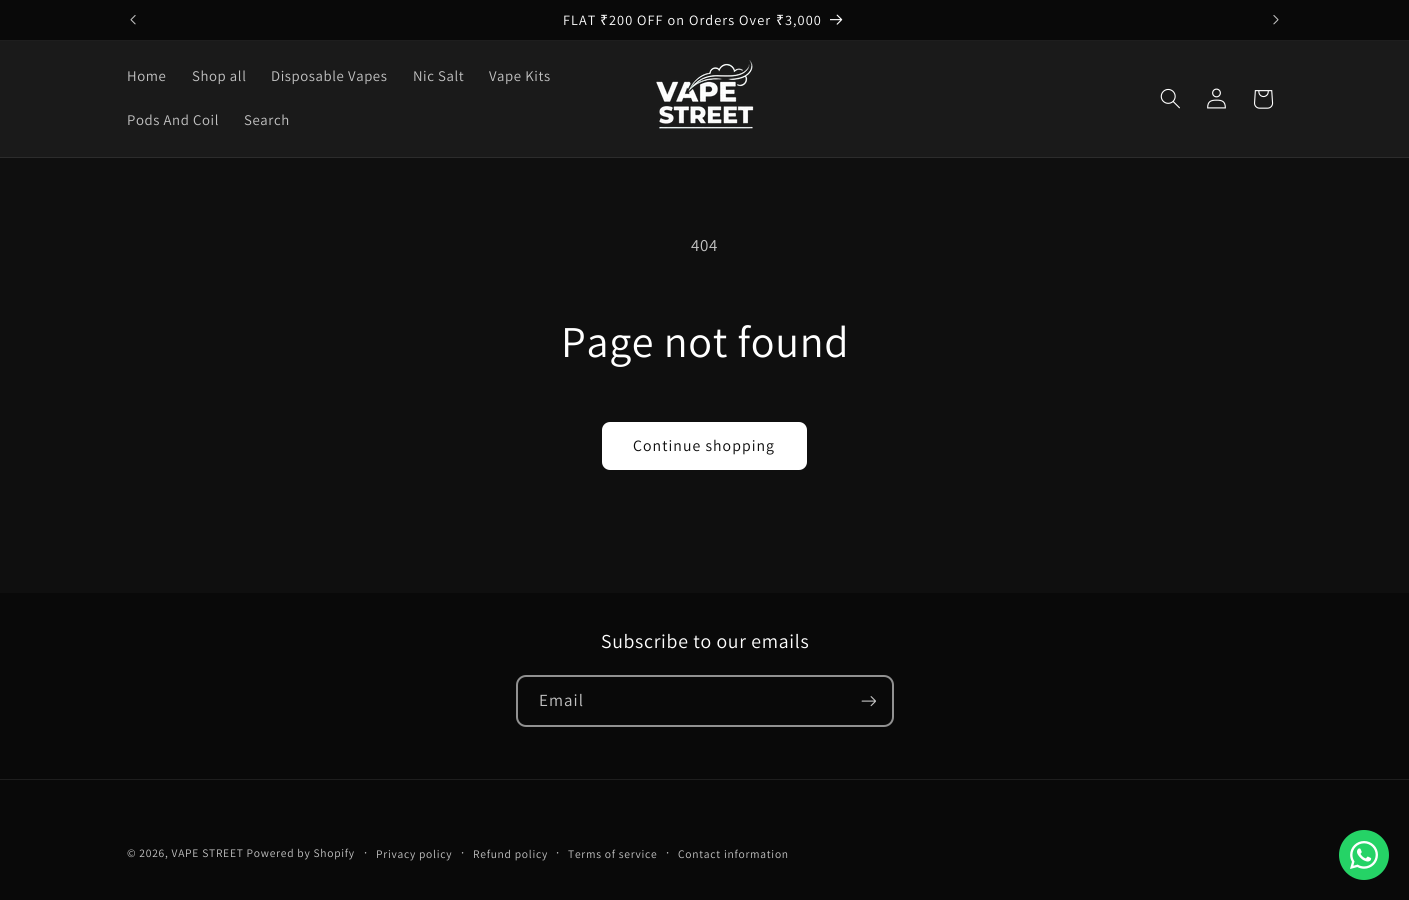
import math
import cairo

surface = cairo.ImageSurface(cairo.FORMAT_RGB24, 1409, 900)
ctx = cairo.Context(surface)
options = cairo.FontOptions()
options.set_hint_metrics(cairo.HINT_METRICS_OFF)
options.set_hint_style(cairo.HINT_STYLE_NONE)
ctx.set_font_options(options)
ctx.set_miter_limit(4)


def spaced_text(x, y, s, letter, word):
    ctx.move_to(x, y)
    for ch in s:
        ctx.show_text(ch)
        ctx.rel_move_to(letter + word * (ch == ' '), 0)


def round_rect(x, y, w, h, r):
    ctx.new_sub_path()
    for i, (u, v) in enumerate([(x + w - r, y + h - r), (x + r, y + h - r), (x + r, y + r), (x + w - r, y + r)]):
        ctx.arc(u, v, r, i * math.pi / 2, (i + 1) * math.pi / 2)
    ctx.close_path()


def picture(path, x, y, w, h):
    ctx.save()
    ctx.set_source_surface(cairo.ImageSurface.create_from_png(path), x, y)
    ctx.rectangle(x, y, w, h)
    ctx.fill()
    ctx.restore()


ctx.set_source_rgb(0.059, 0.059, 0.059)
ctx.paint()
ctx.set_source_rgb(0.039, 0.039, 0.039)
ctx.rectangle(0, 0, 1409, 40)
ctx.fill()
ctx.set_source_rgb(0.118, 0.118, 0.118)
ctx.rectangle(0, 40, 1409, 1)
ctx.fill()
picture("img1.png", 130, 15, 6, 10)
ctx.select_font_face("Assistant")
ctx.set_font_size(14.25)
ctx.set_source_rgb(1, 1, 1)
spaced_text(563, 25, "FLAT", 1.05, 0)
ctx.select_font_face("Noto Sans")
spaced_text(600, 25, "₹", 1.05, 0)
ctx.select_font_face("Assistant")
spaced_text(609, 25, "200 OFF on Orders Over", 1.05, 0)
ctx.select_font_face("Noto Sans")
spaced_text(776, 25, "₹", 1.05, 0)
ctx.select_font_face("Assistant")
spaced_text(785, 25, "3,000", 1.05, 0)
picture("img2.png", 830, 14, 13, 11)
picture("img3.png", 1273, 15, 6, 10)
ctx.set_source_rgb(0.102, 0.102, 0.102)
ctx.rectangle(0, 41, 1409, 116)
ctx.fill()
ctx.set_source_rgb(0.173, 0.173, 0.173)
ctx.rectangle(0, 157, 1409, 1)
ctx.fill()
ctx.set_font_size(14.75)
ctx.set_source_rgb(0.765, 0.765, 0.765)
spaced_text(127, 81, "Home", 0.6, 0)
spaced_text(192, 81, "Shop all", 0.6, 0)
spaced_text(271, 81, "Disposable Vapes", 0.6, 0)
spaced_text(413, 81, "Nic Salt", 0.6, 0)
spaced_text(489, 81, "Vape Kits", 0.6, 0)
spaced_text(127, 125, "Pods And Coil", 0.6, 0)
spaced_text(244, 125, "Search", 0.6, 0)
picture("img4.png", 656, 60, 98, 69)
picture("img5.png", 1160, 88, 20, 21)
picture("img6.png", 1207, 88, 19, 21)
picture("img7.png", 1254, 90, 20, 19)
ctx.set_font_size(17)
spaced_text(691, 251, "404", 0.6, 0)
ctx.set_font_size(44)
ctx.set_source_rgb(1, 1, 1)
spaced_text(561, 357, "Page not found", 0.7, 0)
round_rect(602, 422, 205, 48, 8)
ctx.fill()
ctx.set_font_size(15.75)
ctx.set_source_rgb(0.039, 0.039, 0.039)
spaced_text(633, 451, "Continue shopping", 1.05, 0)
ctx.rectangle(0, 593, 1409, 307)
ctx.fill()
ctx.set_font_size(19.75)
ctx.set_source_rgb(1, 1, 1)
spaced_text(601, 648, "Subscribe to our emails", 0.7, 0)
round_rect(517, 676, 376, 50, 9)
ctx.set_source_rgb(0.569, 0.569, 0.569)
ctx.stroke()
ctx.set_font_size(17)
ctx.set_source_rgb(0.765, 0.765, 0.765)
spaced_text(539, 706, "Email", 1.05, 0)
picture("img8.png", 861, 696, 15, 11)
ctx.set_source_rgb(0.118, 0.118, 0.118)
ctx.rectangle(0, 779, 1409, 1)
ctx.fill()
ctx.set_font_size(11.5)
ctx.set_source_rgb(0.765, 0.765, 0.765)
spaced_text(127, 857, "© 2026, VAPE STREET Powered by Shopify", 0.75, 0)
ctx.set_font_size(13)
spaced_text(364, 857, "·", 0.75, 0)
ctx.set_font_size(11.5)
spaced_text(376, 858, "Privacy policy", 0.75, 0)
ctx.set_font_size(13)
spaced_text(461, 857, "·", 0.75, 0)
ctx.set_font_size(11.5)
spaced_text(473, 858, "Refund policy", 0.75, 0)
ctx.set_font_size(13)
spaced_text(556, 857, "·", 0.75, 0)
ctx.set_font_size(11.5)
spaced_text(568, 858, "Terms of service", 0.75, 0)
ctx.set_font_size(13)
spaced_text(666, 857, "·", 0.75, 0)
ctx.set_font_size(11.5)
spaced_text(678, 858, "Contact information", 0.75, 0)
picture("img9.png", 1339, 830, 50, 50)
surface.write_to_png("page.png")
